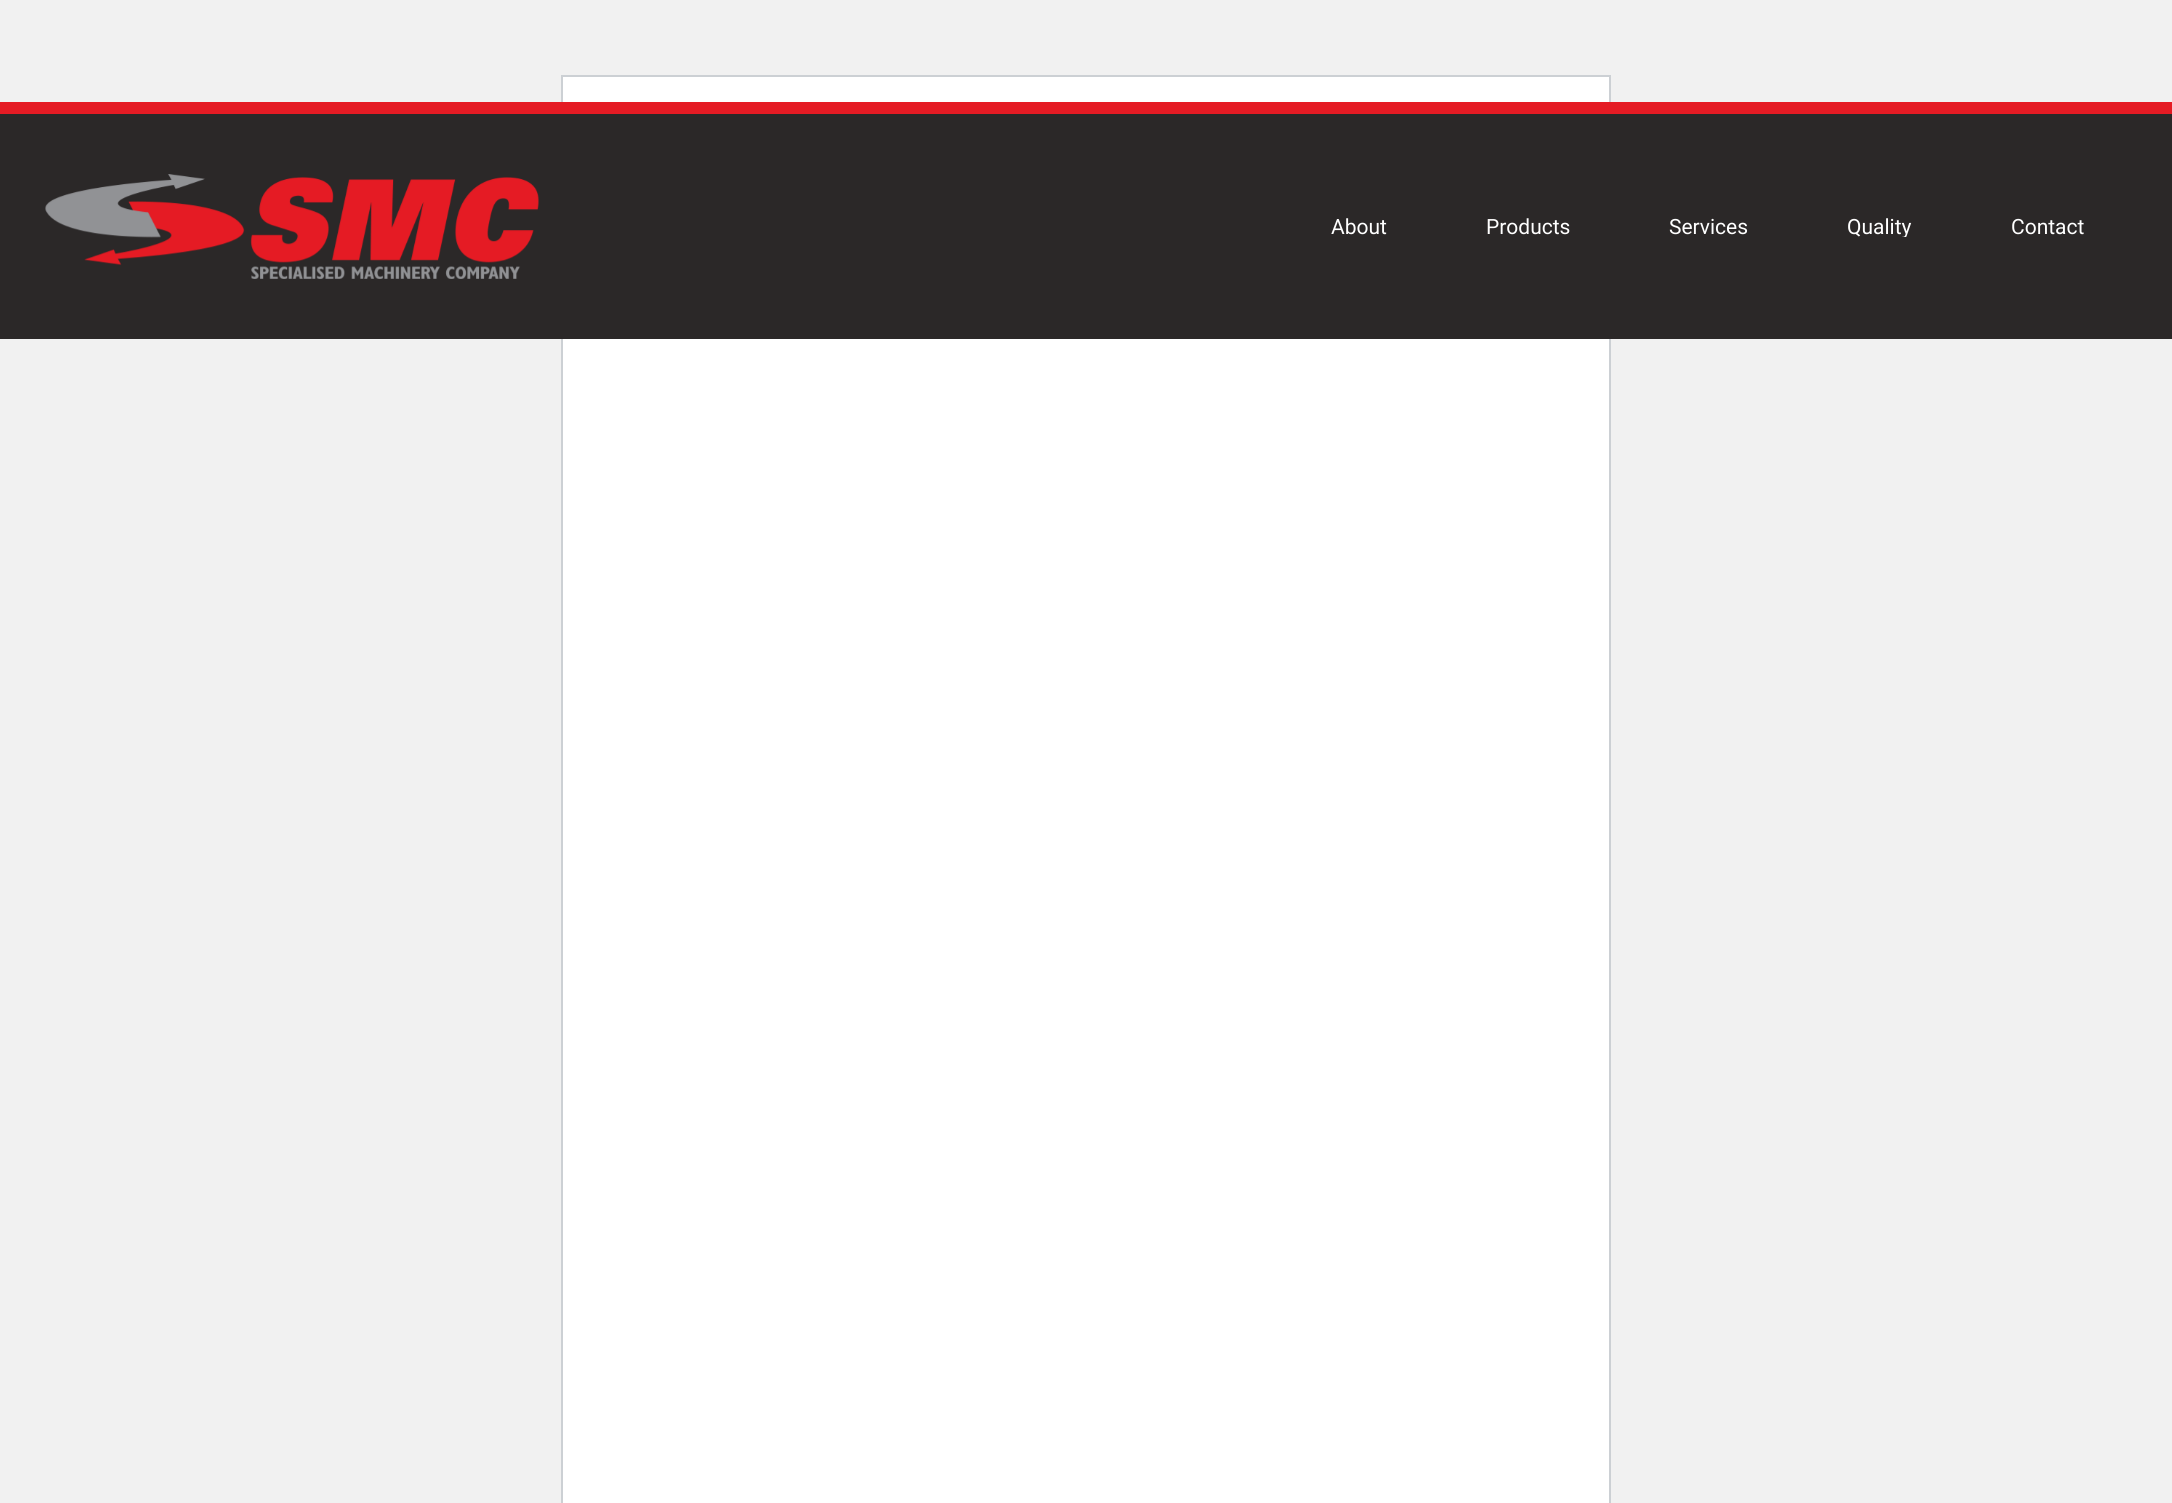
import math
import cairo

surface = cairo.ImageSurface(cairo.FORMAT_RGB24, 2172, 1503)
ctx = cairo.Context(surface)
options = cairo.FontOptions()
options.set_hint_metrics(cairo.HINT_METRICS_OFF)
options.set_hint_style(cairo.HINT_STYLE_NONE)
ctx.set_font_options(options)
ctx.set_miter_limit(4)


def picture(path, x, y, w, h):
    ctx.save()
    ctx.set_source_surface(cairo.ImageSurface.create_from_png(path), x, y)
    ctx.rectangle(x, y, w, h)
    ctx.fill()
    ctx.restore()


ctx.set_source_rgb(0.945, 0.945, 0.945)
ctx.paint()
ctx.set_source_rgb(1, 1, 1)
ctx.rectangle(562, 76, 1048, 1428)
ctx.fill_preserve()
ctx.set_source_rgb(0.8, 0.816, 0.831)
ctx.stroke()
ctx.set_source_rgb(0.898, 0.106, 0.141)
ctx.rectangle(0, 102, 2172, 12)
ctx.fill()
ctx.set_source_rgb(0.169, 0.157, 0.157)
ctx.rectangle(0, 114, 2172, 225)
ctx.fill()
picture("img1.png", 45, 174, 494, 105)
ctx.select_font_face("Roboto")
ctx.set_font_size(21)
ctx.set_source_rgb(1, 1, 1)
ctx.move_to(1331, 234)
ctx.show_text("About")
ctx.move_to(1486, 234)
ctx.show_text("Products")
ctx.move_to(1669, 234)
ctx.show_text("Services")
ctx.save()
ctx.rectangle(1799, 216, 163, 21)
ctx.clip()
ctx.move_to(1847, 234)
ctx.show_text("Quality")
ctx.restore()
ctx.move_to(2011, 234)
ctx.show_text("Contact")
surface.write_to_png("page.png")
